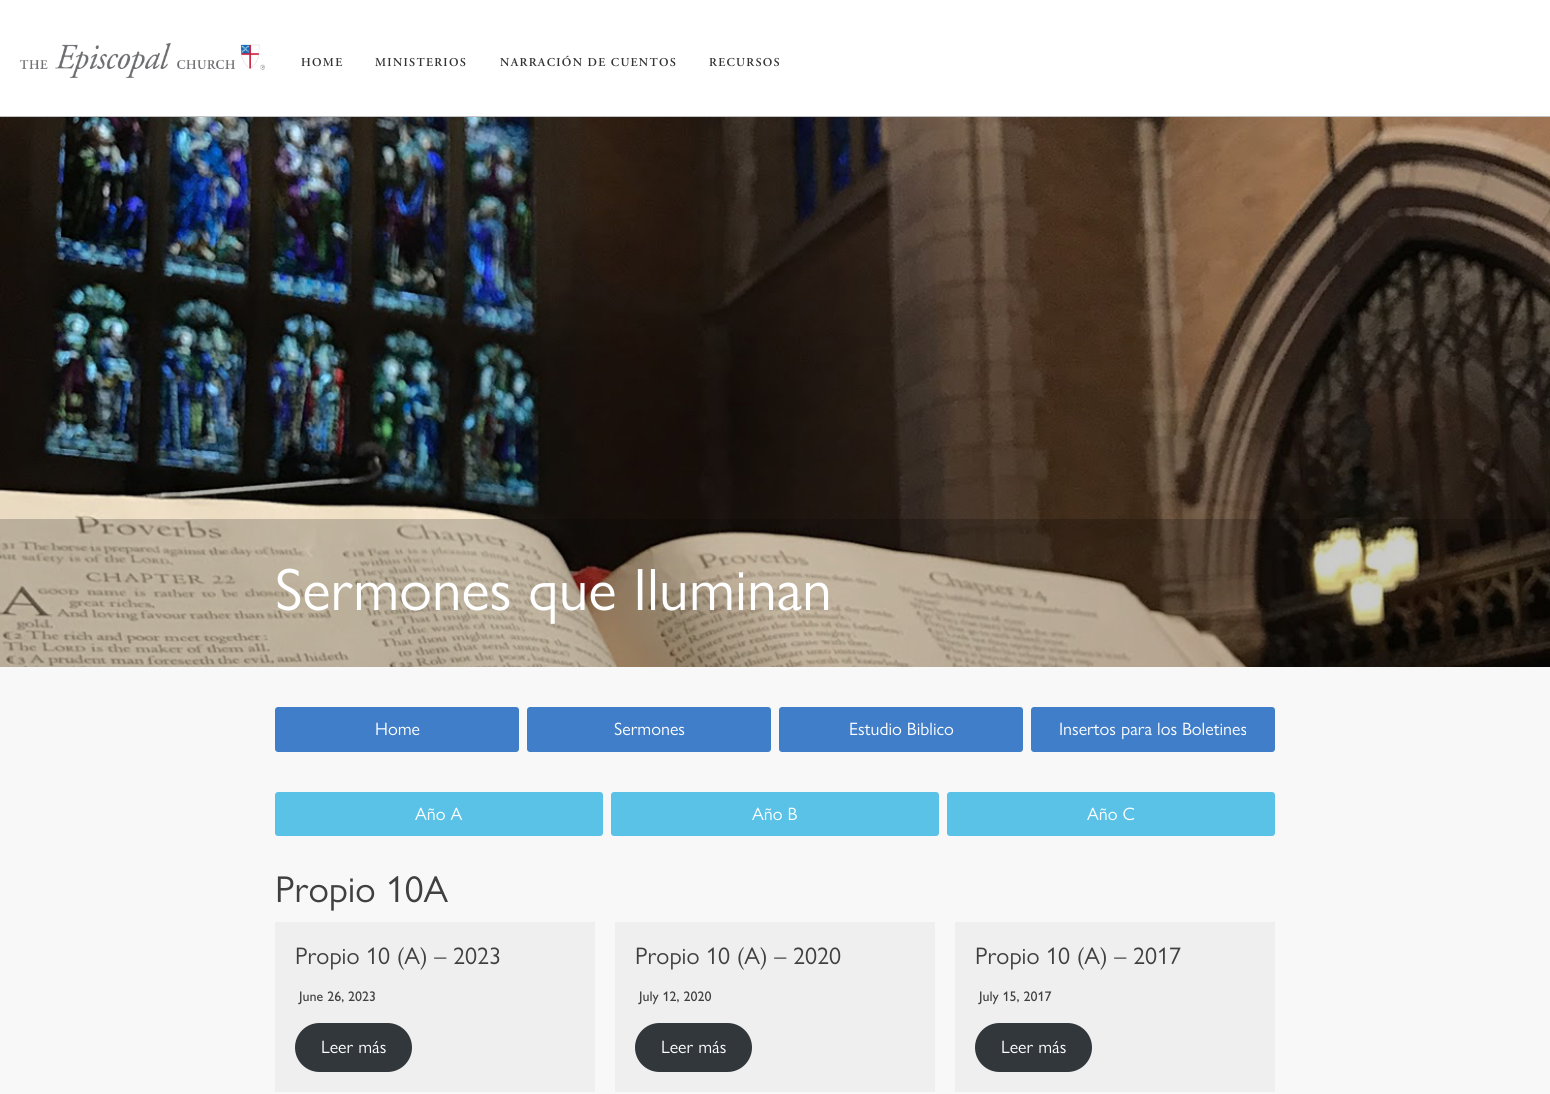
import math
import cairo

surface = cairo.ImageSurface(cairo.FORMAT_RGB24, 1550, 1094)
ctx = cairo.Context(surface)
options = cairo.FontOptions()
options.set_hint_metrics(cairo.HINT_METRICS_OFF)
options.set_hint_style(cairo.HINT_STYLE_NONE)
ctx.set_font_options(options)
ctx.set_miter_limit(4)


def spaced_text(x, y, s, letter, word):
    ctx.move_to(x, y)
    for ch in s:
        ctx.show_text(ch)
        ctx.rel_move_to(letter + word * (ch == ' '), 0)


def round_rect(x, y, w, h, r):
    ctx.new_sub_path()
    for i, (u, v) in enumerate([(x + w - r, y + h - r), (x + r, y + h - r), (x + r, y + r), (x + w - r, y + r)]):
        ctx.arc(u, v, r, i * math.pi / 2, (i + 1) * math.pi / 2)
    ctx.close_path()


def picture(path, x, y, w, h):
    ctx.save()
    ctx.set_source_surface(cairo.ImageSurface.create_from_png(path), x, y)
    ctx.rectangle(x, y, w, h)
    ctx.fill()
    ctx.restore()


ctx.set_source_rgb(0.969, 0.969, 0.969)
ctx.paint()
ctx.set_source_rgb(1, 1, 1)
ctx.rectangle(0, 0, 1550, 116)
ctx.fill()
ctx.set_source_rgb(0.761, 0.761, 0.761)
ctx.rectangle(0, 116, 1550, 1)
ctx.fill()
picture("img1.png", 20, 43, 245, 35)
ctx.select_font_face("Adobe Garamond SemiBold")
ctx.set_font_size(12)
ctx.set_source_rgb(0.2, 0.2, 0.2)
spaced_text(301, 66, "HOME", 1.3, 0)
spaced_text(375, 66, "MINISTERIOS", 1.3, 0)
spaced_text(500, 66, "NARRACIÓN DE CUENTOS", 1.3, 0)
spaced_text(709, 66, "RECURSOS", 1.3, 0)
picture("img2.png", 0, 117, 1550, 550)
ctx.set_source_rgba(0, 0, 0, 0.2)
ctx.rectangle(0, 519, 1550, 148)
ctx.fill()
ctx.select_font_face("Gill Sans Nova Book")
ctx.set_font_size(60)
ctx.set_source_rgb(1, 1, 1)
ctx.move_to(275, 610)
ctx.show_text("Sermones que Iluminan")
ctx.set_source_rgb(0.251, 0.494, 0.788)
round_rect(275, 707, 244, 45, 3)
ctx.fill()
ctx.set_font_size(18)
ctx.set_source_rgb(1, 1, 1)
ctx.move_to(375, 735)
ctx.show_text("Home")
ctx.set_source_rgb(0.251, 0.494, 0.788)
round_rect(527, 707, 244, 45, 3)
ctx.fill()
ctx.set_source_rgb(1, 1, 1)
ctx.move_to(614, 735)
ctx.show_text("Sermones")
ctx.set_source_rgb(0.251, 0.494, 0.788)
round_rect(779, 707, 244, 45, 3)
ctx.fill()
ctx.set_source_rgb(1, 1, 1)
ctx.move_to(849, 735)
ctx.show_text("Estudio Biblico")
ctx.set_source_rgb(0.251, 0.494, 0.788)
round_rect(1031, 707, 244, 45, 3)
ctx.fill()
ctx.set_source_rgb(1, 1, 1)
ctx.move_to(1059, 735)
ctx.show_text("Insertos para los Boletines")
ctx.set_source_rgb(0.357, 0.761, 0.906)
round_rect(275, 792, 328, 44, 3)
ctx.fill()
ctx.set_source_rgb(1, 1, 1)
ctx.move_to(415, 820)
ctx.show_text("Año A")
ctx.set_source_rgb(0.357, 0.761, 0.906)
round_rect(611, 792, 328, 44, 3)
ctx.fill()
ctx.set_source_rgb(1, 1, 1)
ctx.move_to(752, 820)
ctx.show_text("Año B")
ctx.set_source_rgb(0.357, 0.761, 0.906)
round_rect(947, 792, 328, 44, 3)
ctx.fill()
ctx.set_source_rgb(1, 1, 1)
ctx.move_to(1087, 820)
ctx.show_text("Año C")
ctx.set_font_size(37.5)
ctx.set_source_rgb(0.251, 0.251, 0.251)
ctx.move_to(275, 902)
ctx.show_text("Propio 10A")
ctx.set_source_rgb(0.937, 0.937, 0.937)
ctx.rectangle(275, 922, 320, 170)
ctx.fill()
ctx.set_font_size(24)
ctx.set_source_rgb(0.251, 0.251, 0.251)
ctx.move_to(295, 964)
ctx.show_text("Propio 10 (A) – 2023")
ctx.select_font_face("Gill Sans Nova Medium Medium")
ctx.set_font_size(14)
ctx.move_to(299, 1001)
ctx.show_text("June 26, 2023")
ctx.set_source_rgb(0.196, 0.216, 0.235)
round_rect(295, 1023, 117, 49, 24.5)
ctx.fill()
ctx.select_font_face("Gill Sans Nova Book")
ctx.set_font_size(18)
ctx.set_source_rgb(1, 1, 1)
ctx.move_to(321, 1053)
ctx.show_text("Leer más")
ctx.set_source_rgb(0.937, 0.937, 0.937)
ctx.rectangle(615, 922, 320, 170)
ctx.fill()
ctx.set_font_size(24)
ctx.set_source_rgb(0.251, 0.251, 0.251)
ctx.move_to(635, 964)
ctx.show_text("Propio 10 (A) – 2020")
ctx.select_font_face("Gill Sans Nova Medium Medium")
ctx.set_font_size(14)
ctx.move_to(639, 1001)
ctx.show_text("July 12, 2020")
ctx.set_source_rgb(0.196, 0.216, 0.235)
round_rect(635, 1023, 117, 49, 24.5)
ctx.fill()
ctx.select_font_face("Gill Sans Nova Book")
ctx.set_font_size(18)
ctx.set_source_rgb(1, 1, 1)
ctx.move_to(661, 1053)
ctx.show_text("Leer más")
ctx.set_source_rgb(0.937, 0.937, 0.937)
ctx.rectangle(955, 922, 320, 170)
ctx.fill()
ctx.set_font_size(24)
ctx.set_source_rgb(0.251, 0.251, 0.251)
ctx.move_to(975, 964)
ctx.show_text("Propio 10 (A) – 2017")
ctx.select_font_face("Gill Sans Nova Medium Medium")
ctx.set_font_size(14)
ctx.move_to(979, 1001)
ctx.show_text("July 15, 2017")
ctx.set_source_rgb(0.196, 0.216, 0.235)
round_rect(975, 1023, 117, 49, 24.5)
ctx.fill()
ctx.select_font_face("Gill Sans Nova Book")
ctx.set_font_size(18)
ctx.set_source_rgb(1, 1, 1)
ctx.move_to(1001, 1053)
ctx.show_text("Leer más")
surface.write_to_png("page.png")
